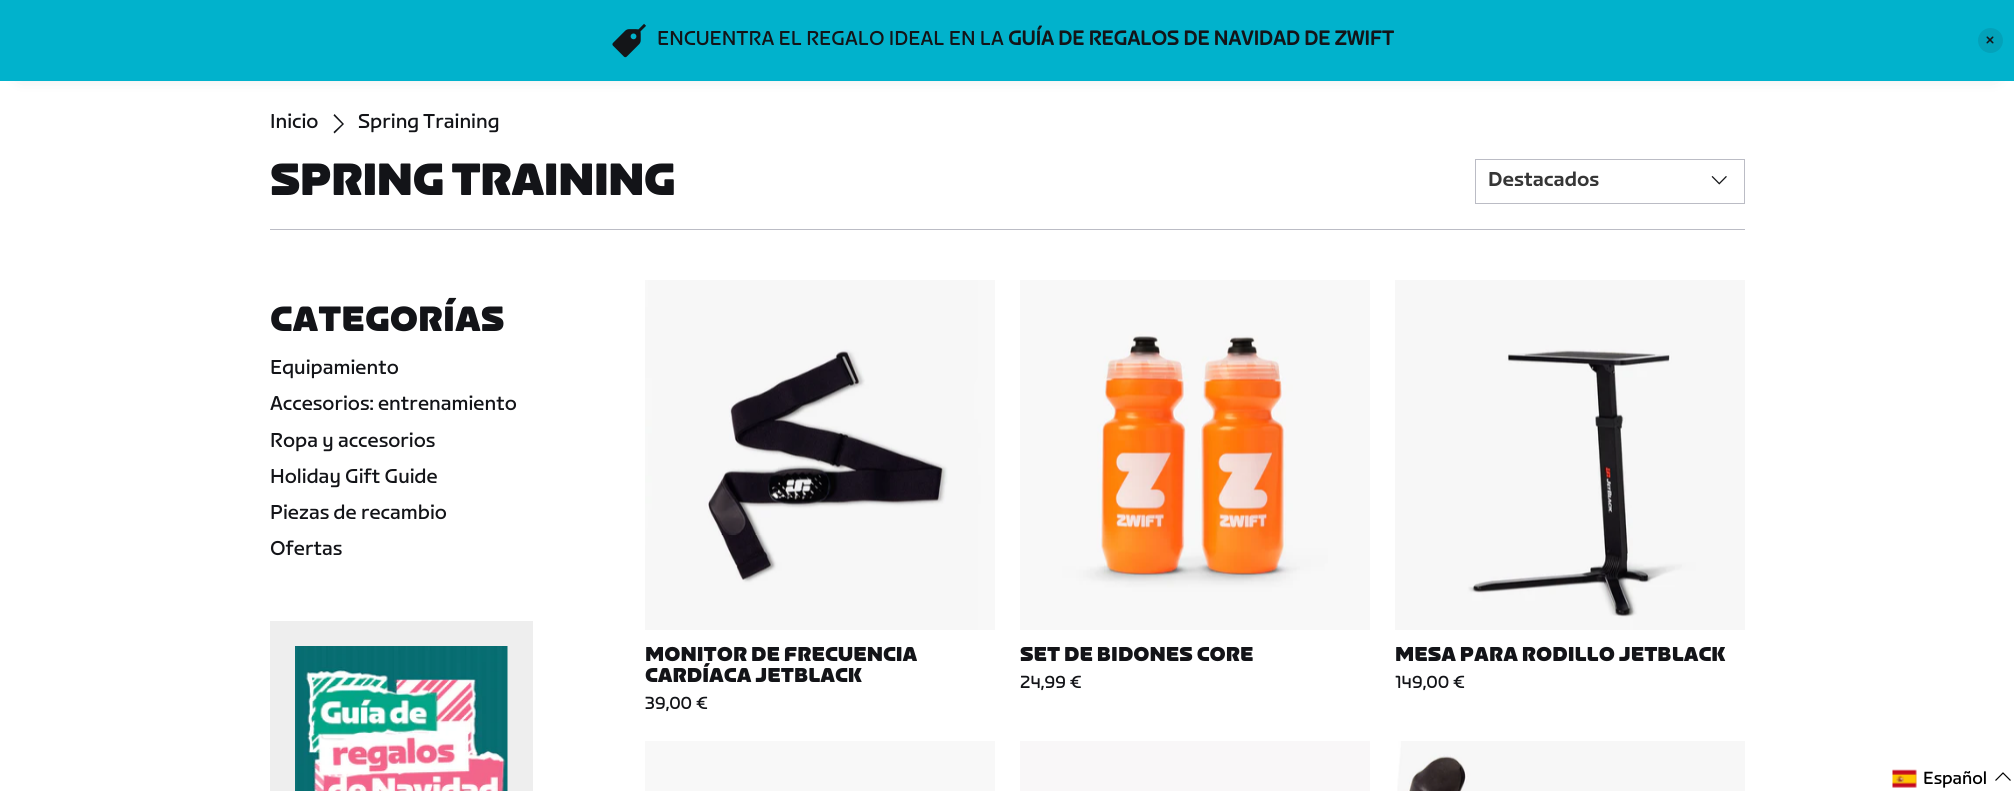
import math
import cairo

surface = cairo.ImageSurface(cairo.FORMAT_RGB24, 2014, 791)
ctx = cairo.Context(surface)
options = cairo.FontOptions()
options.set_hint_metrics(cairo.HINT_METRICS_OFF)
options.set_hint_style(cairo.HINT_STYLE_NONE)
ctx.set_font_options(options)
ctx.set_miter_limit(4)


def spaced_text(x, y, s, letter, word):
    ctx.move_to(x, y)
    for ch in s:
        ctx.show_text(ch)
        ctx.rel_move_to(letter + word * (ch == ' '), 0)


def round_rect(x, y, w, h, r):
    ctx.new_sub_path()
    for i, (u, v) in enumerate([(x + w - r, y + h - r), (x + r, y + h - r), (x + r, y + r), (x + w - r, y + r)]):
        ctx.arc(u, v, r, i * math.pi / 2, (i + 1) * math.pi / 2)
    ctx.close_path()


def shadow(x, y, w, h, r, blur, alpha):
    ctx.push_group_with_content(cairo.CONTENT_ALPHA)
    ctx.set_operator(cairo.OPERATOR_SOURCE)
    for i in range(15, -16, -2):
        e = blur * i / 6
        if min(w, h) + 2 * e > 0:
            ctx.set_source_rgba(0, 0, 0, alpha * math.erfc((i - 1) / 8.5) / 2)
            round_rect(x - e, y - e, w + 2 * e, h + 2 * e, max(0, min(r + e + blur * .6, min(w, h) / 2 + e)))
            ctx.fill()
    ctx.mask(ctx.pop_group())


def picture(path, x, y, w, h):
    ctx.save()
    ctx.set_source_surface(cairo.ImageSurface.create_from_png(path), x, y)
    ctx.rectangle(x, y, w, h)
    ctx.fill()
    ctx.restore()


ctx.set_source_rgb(1, 1, 1)
ctx.paint()
ctx.set_source_rgb(0, 0, 0)
shadow(20, 1, 1975, 73, 0, 10, 0.15)
ctx.set_source_rgb(0.004, 0.698, 0.8)
ctx.rectangle(0, 0, 2014, 81)
ctx.fill()
picture("img1.png", 612, 23, 34, 35)
ctx.select_font_face("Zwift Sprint")
ctx.set_font_size(20)
ctx.set_source_rgb(0.078, 0.082, 0.094)
ctx.move_to(657, 45)
ctx.show_text("ENCUENTRA EL REGALO IDEAL EN LA")
ctx.select_font_face("Zwift Sprint", cairo.FONT_SLANT_NORMAL, cairo.FONT_WEIGHT_BOLD)
ctx.move_to(1008, 45)
ctx.show_text("GUÍA DE REGALOS DE NAVIDAD DE ZWIFT")
ctx.set_source_rgb(0.012, 0.635, 0.729)
ctx.new_path()
ctx.arc(1990.5, 40.5, 12.5, 0, 2 * math.pi)
ctx.fill()
picture("img2.png", 1986, 36, 8, 8)
ctx.select_font_face("Zwift Sprint")
ctx.set_source_rgb(0.078, 0.082, 0.094)
ctx.move_to(270, 128)
ctx.show_text("Inicio")
ctx.new_path()
ctx.move_to(334.5, 133.5)
ctx.line_to(333.5, 132)
ctx.line_to(342, 124)
ctx.line_to(333.5, 115.5)
ctx.line_to(334.5, 114)
ctx.line_to(344, 124)
ctx.close_path()
ctx.fill()
ctx.move_to(358, 128)
ctx.show_text("Spring Training")
ctx.select_font_face("Zwift Sprint Black")
ctx.set_font_size(45)
spaced_text(270, 195, "SPRING TRAINING", -0.9, 0)
ctx.rectangle(1475.5, 159.5, 269, 44)
ctx.set_source_rgb(0.733, 0.737, 0.773)
ctx.set_line_width(1)
ctx.stroke()
ctx.select_font_face("Zwift Sprint Medium")
ctx.set_font_size(20)
ctx.set_source_rgb(0.212, 0.212, 0.212)
ctx.move_to(1488, 186)
ctx.show_text("Destacados")
picture("img3.png", 1711, 176, 16, 9)
ctx.set_source_rgb(0.733, 0.737, 0.773)
ctx.rectangle(270, 229, 1475, 1)
ctx.fill()
ctx.select_font_face("Zwift Sprint Black")
ctx.set_font_size(35)
ctx.set_source_rgb(0.078, 0.082, 0.094)
ctx.move_to(270, 331)
ctx.show_text("CATEGORÍAS")
ctx.select_font_face("Zwift Sprint")
ctx.set_font_size(20)
ctx.move_to(270, 374)
ctx.show_text("Equipamiento")
ctx.move_to(270, 410)
ctx.show_text("Accesorios: entrenamiento")
ctx.move_to(270, 447)
ctx.show_text("Ropa y accesorios")
ctx.move_to(270, 483)
ctx.show_text("Holiday Gift Guide")
ctx.move_to(270, 519)
ctx.show_text("Piezas de recambio")
ctx.move_to(270, 555)
ctx.show_text("Ofertas")
ctx.set_source_rgb(0.933, 0.933, 0.933)
ctx.rectangle(270, 621, 263, 170)
ctx.fill()
picture("img4.png", 295, 646, 213, 145)
picture("img5.png", 645, 280, 350, 350)
ctx.select_font_face("Zwift Sprint Black")
ctx.set_source_rgb(0.078, 0.082, 0.094)
ctx.move_to(645, 661)
ctx.show_text("MONITOR DE FRECUENCIA")
ctx.move_to(645, 682)
ctx.show_text("CARDÍACA JETBLACK")
ctx.select_font_face("Zwift Sprint")
ctx.set_font_size(17.5)
ctx.move_to(645, 709)
ctx.show_text("39,00 €")
picture("img6.png", 1020, 280, 350, 350)
ctx.select_font_face("Zwift Sprint Black")
ctx.set_font_size(20)
ctx.move_to(1020, 661)
ctx.show_text("SET DE BIDONES CORE")
ctx.select_font_face("Zwift Sprint")
ctx.set_font_size(17.5)
ctx.move_to(1020, 688)
ctx.show_text("24,99 €")
picture("img7.png", 1395, 280, 350, 350)
ctx.select_font_face("Zwift Sprint Black")
ctx.set_font_size(20)
ctx.move_to(1395, 661)
ctx.show_text("MESA PARA RODILLO JETBLACK")
ctx.select_font_face("Zwift Sprint")
ctx.set_font_size(17.5)
ctx.move_to(1395, 688)
ctx.show_text("149,00 €")
ctx.set_source_rgb(0.969, 0.969, 0.969)
ctx.rectangle(645, 741, 350, 50)
ctx.fill()
ctx.set_source_rgb(0.973, 0.965, 0.969)
ctx.rectangle(1020, 741, 350, 50)
ctx.fill()
picture("img8.png", 1397, 741, 348, 50)
picture("img9.png", 1892, 769, 25, 19)
ctx.set_source_rgb(0, 0, 0)
ctx.move_to(1923, 784)
ctx.show_text("Español")
ctx.new_path()
ctx.move_to(2010.5, 780.5)
ctx.line_to(2003, 773)
ctx.line_to(1995.5, 780.5)
ctx.set_line_width(1.2)
ctx.stroke()
surface.write_to_png("page.png")
